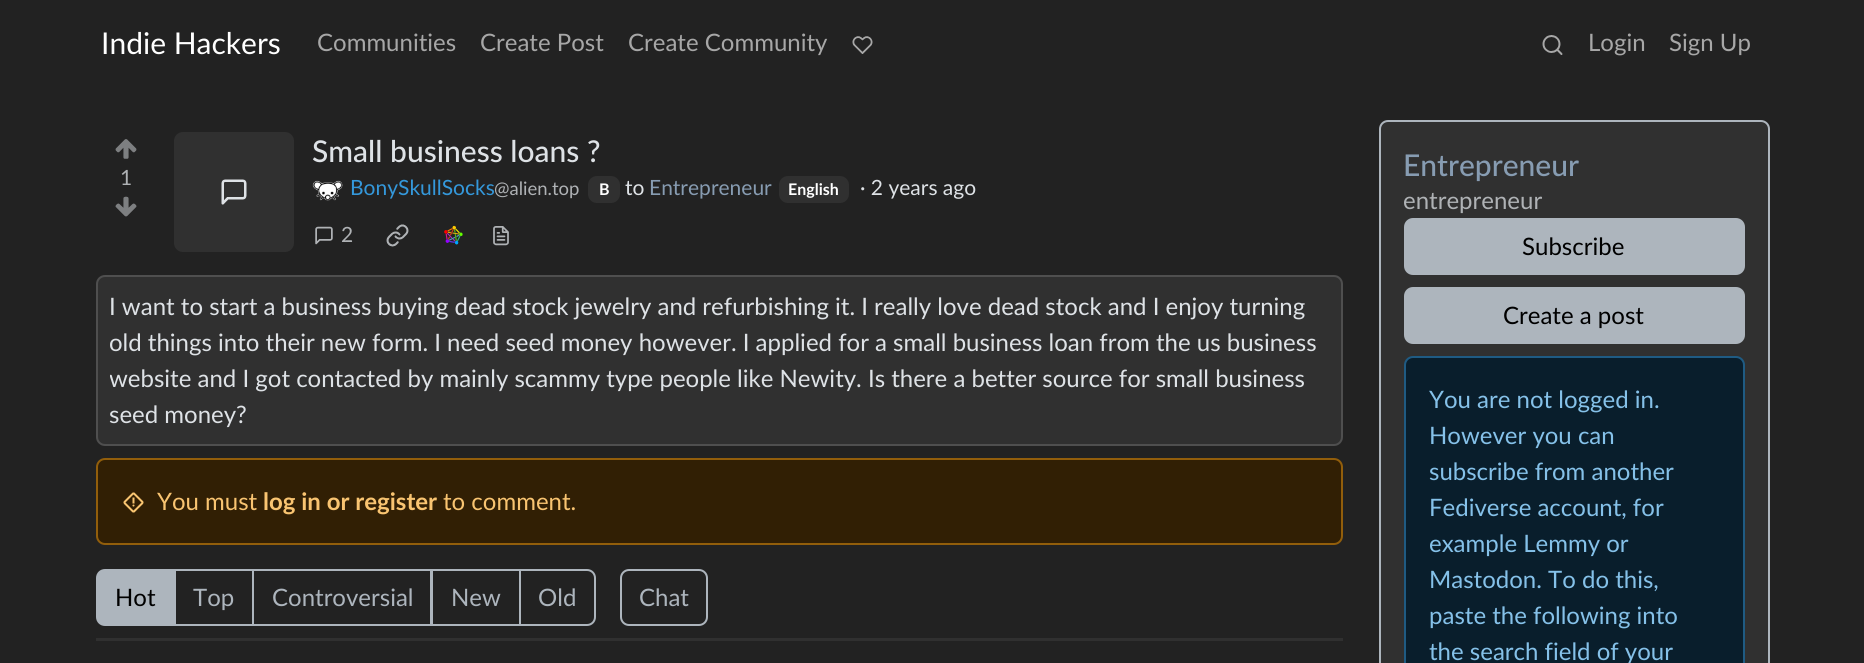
import math
import cairo

surface = cairo.ImageSurface(cairo.FORMAT_RGB24, 1864, 663)
ctx = cairo.Context(surface)
options = cairo.FontOptions()
options.set_hint_metrics(cairo.HINT_METRICS_OFF)
options.set_hint_style(cairo.HINT_STYLE_NONE)
ctx.set_font_options(options)
ctx.set_miter_limit(4)


def round_rect(x, y, w, h, r):
    ctx.new_sub_path()
    for i, (u, v) in enumerate([(x + w - r, y + h - r), (x + r, y + h - r), (x + r, y + r), (x + w - r, y + r)]):
        ctx.arc(u, v, r, i * math.pi / 2, (i + 1) * math.pi / 2)
    ctx.close_path()


def picture(path, x, y, w, h):
    ctx.save()
    ctx.set_source_surface(cairo.ImageSurface.create_from_png(path), x, y)
    ctx.rectangle(x, y, w, h)
    ctx.fill()
    ctx.restore()


ctx.set_source_rgb(0.133, 0.133, 0.133)
ctx.paint()
ctx.select_font_face("Lato")
ctx.set_font_size(30)
ctx.set_source_rgb(1, 1, 1)
ctx.move_to(101, 54)
ctx.show_text("Indie Hackers")
ctx.set_font_size(24)
ctx.set_source_rgb(0.655, 0.655, 0.655)
ctx.move_to(317, 51)
ctx.show_text("Communities")
ctx.move_to(480, 51)
ctx.show_text("Create Post")
ctx.move_to(628, 51)
ctx.show_text("Create Community")
picture("img1.png", 852, 36, 21, 18)
picture("img2.png", 1542, 35, 21, 20)
ctx.move_to(1588, 51)
ctx.show_text("Login")
ctx.move_to(1669, 51)
ctx.show_text("Sign Up")
picture("img3.png", 115, 139, 22, 20)
ctx.set_font_size(21)
ctx.set_source_rgb(0.686, 0.698, 0.71)
ctx.move_to(120, 185)
ctx.show_text("1")
picture("img4.png", 115, 196, 22, 21)
ctx.set_source_rgb(0.188, 0.188, 0.188)
round_rect(174, 132, 120, 120, 9)
ctx.fill()
picture("img5.png", 221, 179, 26, 26)
ctx.select_font_face("Lato Medium")
ctx.set_font_size(30)
ctx.set_source_rgb(0.871, 0.886, 0.902)
ctx.move_to(312, 162)
ctx.show_text("Small business loans ?")
picture("img6.png", 312, 180, 31, 21)
ctx.select_font_face("Lato")
ctx.set_font_size(21)
ctx.set_source_rgb(0.204, 0.596, 0.859)
ctx.move_to(350, 195)
ctx.show_text("BonySkullSocks")
ctx.set_font_size(18.5)
ctx.set_source_rgb(0.686, 0.698, 0.71)
ctx.move_to(494, 195)
ctx.show_text("@alien.top")
ctx.set_source_rgb(0.188, 0.188, 0.188)
round_rect(588, 176, 32, 27, 9)
ctx.fill()
ctx.select_font_face("Lato", cairo.FONT_SLANT_NORMAL, cairo.FONT_WEIGHT_BOLD)
ctx.set_font_size(16)
ctx.set_source_rgb(1, 1, 1)
ctx.move_to(599, 195)
ctx.show_text("B")
ctx.select_font_face("Lato")
ctx.set_font_size(21)
ctx.set_source_rgb(0.871, 0.886, 0.902)
ctx.move_to(625, 195)
ctx.show_text("to")
ctx.set_source_rgb(0.529, 0.612, 0.698)
ctx.move_to(649, 195)
ctx.show_text("Entrepreneur")
ctx.set_source_rgb(0.188, 0.188, 0.188)
round_rect(779, 176, 70, 27, 9)
ctx.fill()
ctx.select_font_face("Lato", cairo.FONT_SLANT_NORMAL, cairo.FONT_WEIGHT_BOLD)
ctx.set_font_size(16)
ctx.set_source_rgb(1, 1, 1)
ctx.move_to(788, 195)
ctx.show_text("English")
ctx.select_font_face("Lato")
ctx.set_font_size(21)
ctx.set_source_rgb(0.871, 0.886, 0.902)
ctx.move_to(860, 195)
ctx.show_text("· 2 years ago")
picture("img7.png", 315, 226, 18, 19)
ctx.set_source_rgb(0.686, 0.698, 0.71)
ctx.move_to(341, 242)
ctx.show_text("2")
picture("img8.png", 386, 224, 23, 23)
picture("img9.png", 444, 225, 19, 20)
picture("img10.png", 493, 226, 16, 20)
ctx.set_source_rgb(0.188, 0.188, 0.188)
round_rect(96, 275, 1247, 171, 9)
ctx.fill()
round_rect(97, 276, 1245, 169, 8)
ctx.set_source_rgba(1, 1, 1, 0.15)
ctx.stroke()
ctx.set_font_size(24)
ctx.set_source_rgb(0.871, 0.886, 0.902)
ctx.move_to(109, 315)
ctx.show_text("I want to start a business buying dead stock jewelry and refurbishing it. I really love dead stock and I enjoy turning")
ctx.save()
ctx.rectangle(110, 288, 1219, 144)
ctx.clip()
ctx.move_to(109, 351)
ctx.show_text("old things into their new form. I need seed money however. I applied for a small business loan from the us business")
ctx.move_to(109, 387)
ctx.show_text("website and I got contacted by mainly scammy type people like Newity. Is there a better source for small business")
ctx.restore()
ctx.move_to(109, 423)
ctx.show_text("seed money?")
ctx.set_source_rgb(0.192, 0.122, 0.016)
round_rect(97, 459, 1245, 85, 8)
ctx.fill_preserve()
ctx.set_source_rgb(0.573, 0.369, 0.043)
ctx.stroke()
picture("img11.png", 123, 492, 21, 21)
ctx.set_source_rgb(0.973, 0.769, 0.443)
ctx.move_to(157, 510)
ctx.show_text("You must")
ctx.select_font_face("Lato", cairo.FONT_SLANT_NORMAL, cairo.FONT_WEIGHT_BOLD)
ctx.move_to(263, 510)
ctx.show_text("log in or register")
ctx.select_font_face("Lato")
ctx.move_to(443, 510)
ctx.show_text("to comment.")
ctx.rectangle(175, 570, 78, 55)
ctx.set_source_rgb(0.678, 0.71, 0.741)
ctx.stroke()
ctx.new_path()
ctx.move_to(105, 570)
ctx.line_to(175, 570)
ctx.line_to(175, 625)
ctx.line_to(105, 625)
ctx.curve_to(100.5, 625, 97, 621.5, 97, 617)
ctx.line_to(97, 578)
ctx.curve_to(97, 573.5, 100.5, 570, 105, 570)
ctx.close_path()
ctx.fill_preserve()
ctx.stroke()
ctx.set_source_rgb(0, 0, 0)
ctx.move_to(115, 606)
ctx.show_text("Hot")
ctx.set_source_rgb(0.678, 0.71, 0.741)
ctx.move_to(193, 606)
ctx.show_text("Top")
ctx.rectangle(253, 570, 178, 55)
ctx.stroke()
ctx.move_to(272, 606)
ctx.show_text("Controversial")
ctx.rectangle(432, 570, 88, 55)
ctx.stroke()
ctx.move_to(451, 606)
ctx.show_text("New")
ctx.new_path()
ctx.move_to(520, 570)
ctx.line_to(587, 570)
ctx.curve_to(591.5, 570, 595, 573.5, 595, 578)
ctx.line_to(595, 617)
ctx.curve_to(595, 621.5, 591.5, 625, 587, 625)
ctx.line_to(520, 625)
ctx.close_path()
ctx.stroke()
ctx.move_to(538, 606)
ctx.show_text("Old")
round_rect(621, 570, 86, 55, 8)
ctx.stroke()
ctx.move_to(639, 606)
ctx.show_text("Chat")
ctx.set_source_rgb(0.188, 0.188, 0.188)
ctx.rectangle(96, 638, 1247, 3)
ctx.fill()
round_rect(1380, 121, 389, 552, 8)
ctx.fill_preserve()
ctx.set_source_rgb(0.678, 0.71, 0.741)
ctx.stroke()
ctx.select_font_face("Lato Medium")
ctx.set_font_size(30)
ctx.set_source_rgb(0.529, 0.612, 0.698)
ctx.move_to(1403, 176)
ctx.show_text("Entrepreneur")
ctx.select_font_face("Lato")
ctx.set_font_size(24)
ctx.set_source_rgb(0.686, 0.698, 0.71)
ctx.move_to(1403, 209)
ctx.show_text("entrepreneur")
ctx.set_source_rgb(0.678, 0.71, 0.741)
round_rect(1405, 219, 339, 55, 8)
ctx.fill_preserve()
ctx.stroke()
ctx.set_source_rgb(0, 0, 0)
ctx.move_to(1522, 255)
ctx.show_text("Subscribe")
ctx.set_source_rgb(0.678, 0.71, 0.741)
round_rect(1405, 288, 339, 55, 8)
ctx.fill_preserve()
ctx.stroke()
ctx.set_source_rgb(0, 0, 0)
ctx.move_to(1503, 324)
ctx.show_text("Create a post")
ctx.set_source_rgb(0.039, 0.118, 0.173)
round_rect(1405, 357, 339, 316, 8)
ctx.fill_preserve()
ctx.set_source_rgb(0.122, 0.357, 0.514)
ctx.stroke()
ctx.set_source_rgb(0.522, 0.757, 0.914)
ctx.move_to(1429, 408)
ctx.show_text("You are not logged in.")
ctx.move_to(1429, 444)
ctx.show_text("However you can")
ctx.move_to(1429, 480)
ctx.show_text("subscribe from another")
ctx.move_to(1429, 516)
ctx.show_text("Fediverse account, for")
ctx.move_to(1429, 552)
ctx.show_text("example Lemmy or")
ctx.move_to(1429, 588)
ctx.show_text("Mastodon. To do this,")
ctx.move_to(1429, 624)
ctx.show_text("paste the following into")
ctx.move_to(1429, 660)
ctx.show_text("the search field of your")
surface.write_to_png("page.png")
